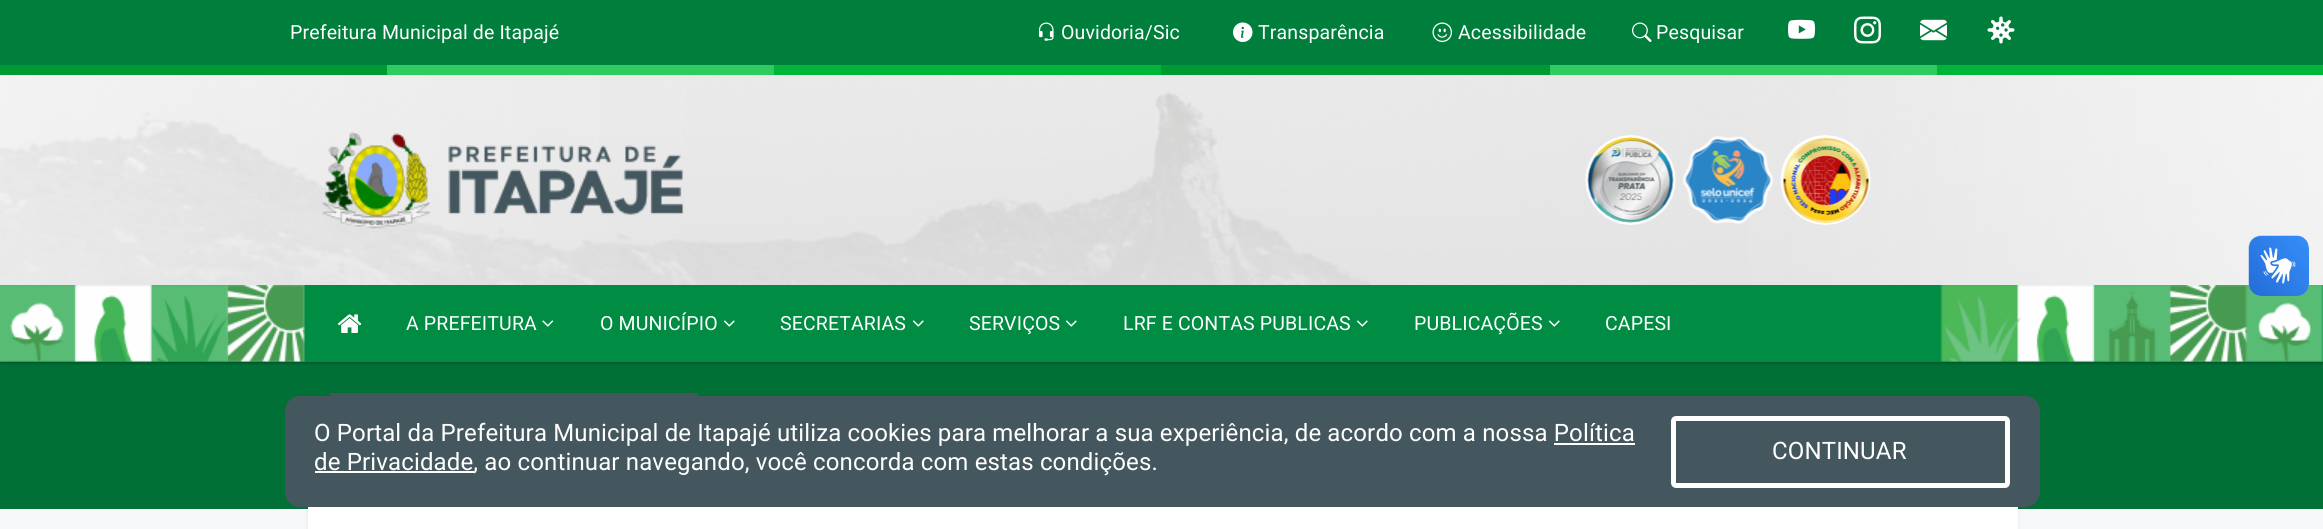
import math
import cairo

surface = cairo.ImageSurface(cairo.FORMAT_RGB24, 2323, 529)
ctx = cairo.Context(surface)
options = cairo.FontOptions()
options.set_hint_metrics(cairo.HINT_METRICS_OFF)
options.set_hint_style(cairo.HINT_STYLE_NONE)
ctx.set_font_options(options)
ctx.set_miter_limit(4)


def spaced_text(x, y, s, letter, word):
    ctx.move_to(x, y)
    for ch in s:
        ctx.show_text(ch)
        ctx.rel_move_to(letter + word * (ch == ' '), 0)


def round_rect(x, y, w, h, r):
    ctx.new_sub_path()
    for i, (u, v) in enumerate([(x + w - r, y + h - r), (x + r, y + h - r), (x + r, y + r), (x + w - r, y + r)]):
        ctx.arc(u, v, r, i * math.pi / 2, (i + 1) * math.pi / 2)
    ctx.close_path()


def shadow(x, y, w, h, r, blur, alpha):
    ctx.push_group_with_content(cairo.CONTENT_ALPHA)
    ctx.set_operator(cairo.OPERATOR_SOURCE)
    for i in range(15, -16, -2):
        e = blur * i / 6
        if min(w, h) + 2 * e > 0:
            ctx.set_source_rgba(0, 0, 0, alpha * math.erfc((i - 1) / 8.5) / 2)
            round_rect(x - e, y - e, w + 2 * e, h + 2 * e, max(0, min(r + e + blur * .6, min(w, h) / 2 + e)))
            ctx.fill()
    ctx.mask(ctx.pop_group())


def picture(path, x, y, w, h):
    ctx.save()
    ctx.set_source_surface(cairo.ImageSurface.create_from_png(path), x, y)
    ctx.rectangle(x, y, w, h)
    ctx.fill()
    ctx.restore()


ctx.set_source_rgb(0.965, 0.969, 0.973)
ctx.paint()
ctx.set_source_rgb(0.012, 0, 0.278)
shadow(308, 465, 1710, 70, 0, 2, 0.09)
ctx.set_source_rgb(0, 0.439, 0.212)
ctx.rectangle(0, 362, 2323, 147)
ctx.fill()
ctx.set_source_rgb(0, 0, 0)
shadow(0, 2, 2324, 361, 0, 1.5, 0.3)
picture("img1.png", 0, 75, 2323, 210)
ctx.set_source_rgb(0, 0.498, 0.235)
ctx.rectangle(0, 0, 2323, 65)
ctx.fill()
ctx.select_font_face("Roboto")
ctx.set_font_size(19.5)
ctx.set_source_rgb(1, 1, 1)
spaced_text(290, 39, "Prefeitura Municipal de Itapajé", 0.15, 0)
picture("img2.png", 1038, 22, 16, 19)
spaced_text(1061, 39, "Ouvidoria/Sic", 0.15, 0)
picture("img3.png", 1233, 22, 20, 20)
spaced_text(1258, 39, "Transparência", 0.15, 0)
picture("img4.png", 1432, 22, 20, 20)
spaced_text(1458, 39, "Acessibilidade", 0.15, 0)
picture("img5.png", 1632, 22, 20, 20)
spaced_text(1656, 39, "Pesquisar", 0.15, 0)
picture("img6.png", 1788, 19, 27, 20)
picture("img7.png", 1854, 16, 27, 28)
picture("img8.png", 1920, 19, 27, 22)
picture("img9.png", 1987, 16, 28, 28)
ctx.set_source_rgb(0, 0.604, 0.2)
ctx.rectangle(0, 65, 387, 10)
ctx.fill()
ctx.set_source_rgb(0.18, 0.8, 0.376)
ctx.rectangle(387, 65, 387, 10)
ctx.fill()
ctx.set_source_rgb(0, 0.71, 0.216)
ctx.rectangle(774, 65, 387, 10)
ctx.fill()
ctx.set_source_rgb(0, 0.604, 0.2)
ctx.rectangle(1161, 65, 389, 10)
ctx.fill()
ctx.set_source_rgb(0.18, 0.8, 0.376)
ctx.rectangle(1550, 65, 387, 10)
ctx.fill()
ctx.set_source_rgb(0, 0.71, 0.216)
ctx.rectangle(1937, 65, 386, 10)
ctx.fill()
picture("img10.png", 322, 132, 362, 97)
picture("img11.png", 1585, 135, 91, 90)
picture("img12.png", 1682, 136, 92, 88)
picture("img13.png", 1780, 135, 91, 90)
ctx.set_source_rgb(0, 0.553, 0.263)
ctx.rectangle(0, 285, 2323, 77)
ctx.fill()
picture("img14.png", 0, 285, 2323, 77)
picture("img15.png", 337, 314, 25, 19)
ctx.set_source_rgb(1, 1, 1)
spaced_text(406, 330, "A PREFEITURA", 0.15, 0)
picture("img16.png", 542, 320, 12, 7)
spaced_text(600, 330, "O MUNICÍPIO", 0.15, 0)
picture("img17.png", 723, 320, 12, 7)
spaced_text(780, 330, "SECRETARIAS", 0.15, 0)
picture("img17.png", 912, 320, 12, 7)
spaced_text(969, 330, "SERVIÇOS", 0.15, 0)
picture("img17.png", 1065, 320, 12, 7)
spaced_text(1123, 330, "LRF E CONTAS PUBLICAS", 0.15, 0)
picture("img17.png", 1356, 320, 12, 7)
spaced_text(1414, 330, "PUBLICAÇÕES", 0.15, 0)
picture("img17.png", 1548, 320, 12, 7)
spaced_text(1605, 330, "CAPESI", 0.15, 0)
picture("img18.png", 2248, 235, 61, 61)
picture("img19.png", 2249, 236, 60, 60)
ctx.set_source_rgb(0.267, 0.341, 0.369)
ctx.rectangle(330, 393, 368, 3)
ctx.fill()
ctx.set_source_rgb(1, 1, 1)
ctx.rectangle(308, 519, 1710, 10)
ctx.fill()
round_rect(308, 464, 1710, 60, 5)
ctx.fill()
ctx.set_source_rgb(0.267, 0.341, 0.369)
round_rect(285, 396, 1755, 111, 15)
ctx.fill()
ctx.set_font_size(24)
ctx.set_source_rgb(1, 1, 1)
spaced_text(314, 441, "O Portal da Prefeitura Municipal de Itapajé utiliza cookies para melhorar a sua experiência, de acordo com a nossa Política", 0.15, 0)
ctx.rectangle(315, 471, 159, 2)
ctx.fill()
spaced_text(314, 470, "de Privacidade, ao continuar navegando, você concorda com estas condições.", 0.15, 0)
ctx.rectangle(1554, 443, 81, 2)
ctx.fill()
round_rect(1673.5, 418.5, 334, 67, 2.5)
ctx.set_line_width(5)
ctx.stroke()
spaced_text(1772, 459, "CONTINUAR", 0.15, 0)
surface.write_to_png("page.png")
